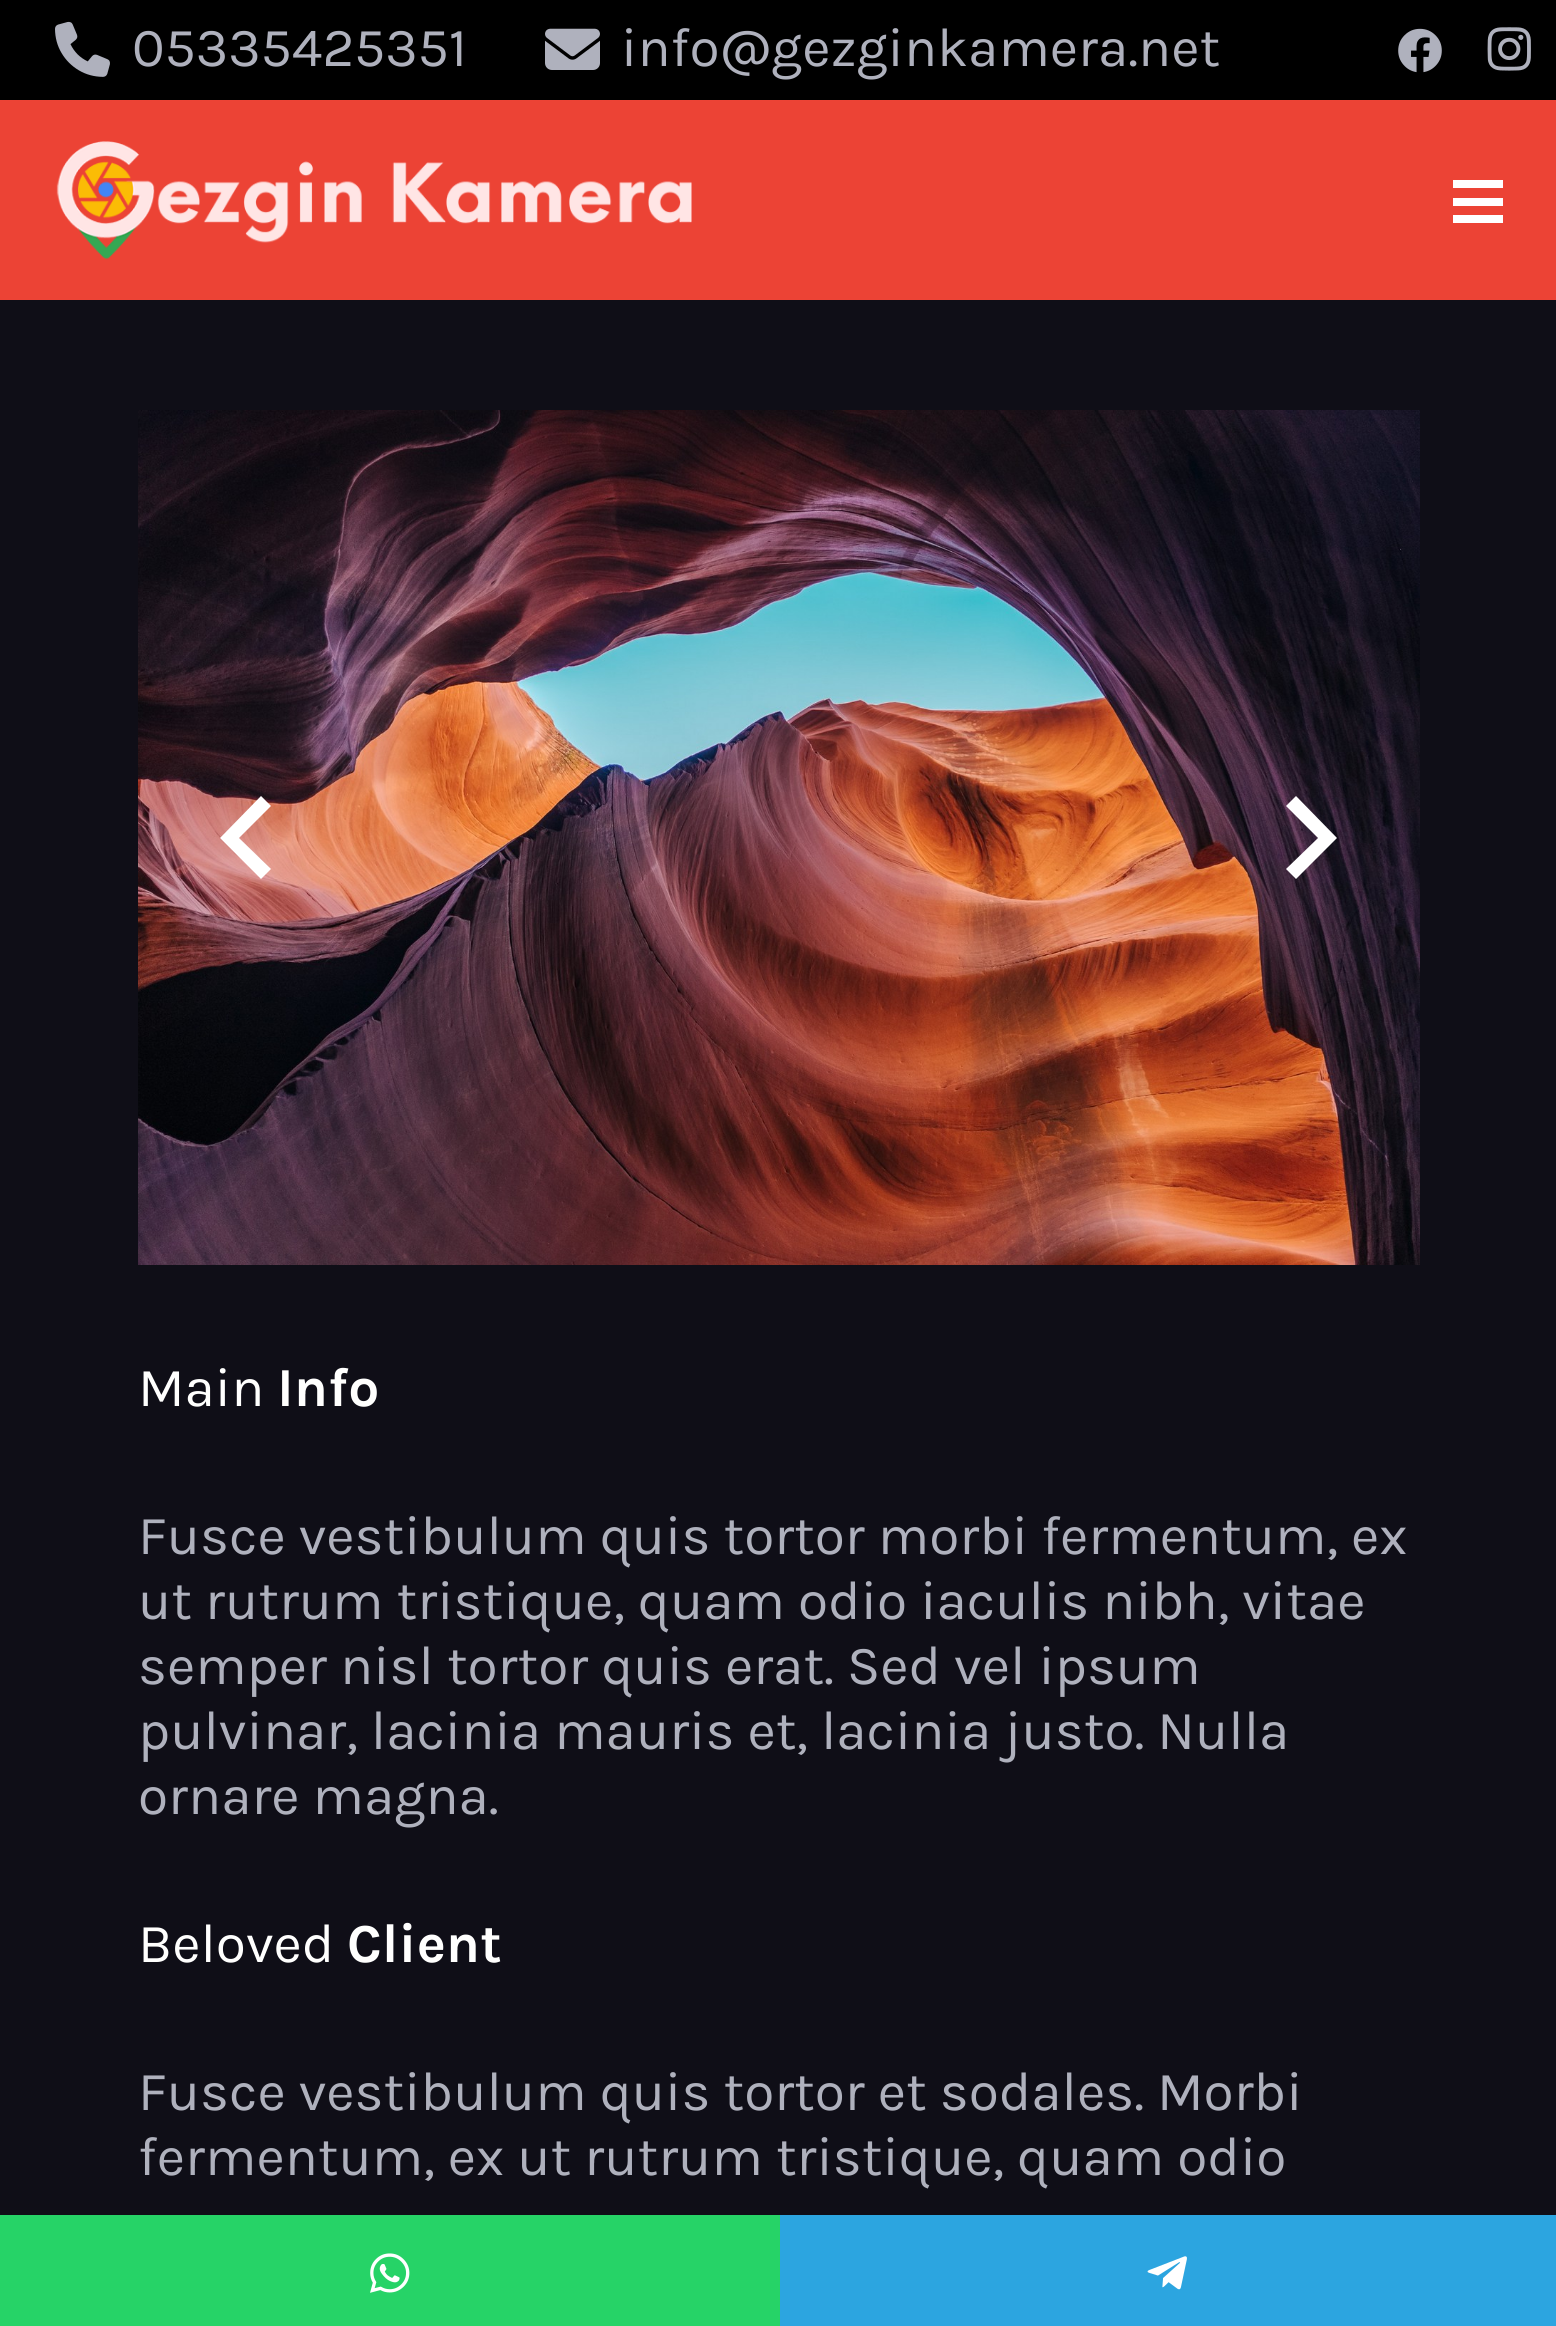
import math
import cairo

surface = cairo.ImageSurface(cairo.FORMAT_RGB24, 1556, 2326)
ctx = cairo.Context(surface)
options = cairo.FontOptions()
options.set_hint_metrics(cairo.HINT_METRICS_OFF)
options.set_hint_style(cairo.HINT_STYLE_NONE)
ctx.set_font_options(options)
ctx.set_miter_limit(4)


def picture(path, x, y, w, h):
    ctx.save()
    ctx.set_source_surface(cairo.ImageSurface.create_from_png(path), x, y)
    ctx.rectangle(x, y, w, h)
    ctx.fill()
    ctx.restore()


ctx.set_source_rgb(0.059, 0.055, 0.09)
ctx.paint()
ctx.set_source_rgb(0, 0, 0)
ctx.rectangle(0, 0, 1556, 100)
ctx.fill()
picture("img1.png", 55, 21, 55, 56)
ctx.select_font_face("Karla")
ctx.set_font_size(55)
ctx.set_source_rgb(0.686, 0.694, 0.741)
ctx.move_to(132, 66)
ctx.show_text("05335425351")
picture("img2.png", 545, 28, 55, 42)
ctx.move_to(621, 66)
ctx.show_text("info@gezginkamera.net")
picture("img3.png", 1398, 28, 44, 45)
picture("img4.png", 1487, 27, 44, 44)
ctx.set_source_rgb(0.922, 0.263, 0.208)
ctx.rectangle(0, 100, 1556, 200)
ctx.fill()
picture("img5.png", 56, 141, 636, 119)
ctx.set_source_rgb(1, 1, 1)
ctx.rectangle(1453, 198, 50, 8)
ctx.fill()
ctx.rectangle(1453, 180, 50, 8)
ctx.fill()
ctx.rectangle(1453, 215, 50, 8)
ctx.fill()
picture("img6.png", 138, 410, 1282, 855)
ctx.new_path()
ctx.move_to(271, 869)
ctx.line_to(261, 879)
ctx.line_to(220, 838)
ctx.line_to(261, 796)
ctx.line_to(271, 806)
ctx.line_to(239, 838)
ctx.close_path()
ctx.fill()
ctx.new_path()
ctx.move_to(1286, 869)
ctx.line_to(1318, 838)
ctx.line_to(1286, 806)
ctx.line_to(1296, 796)
ctx.line_to(1337, 838)
ctx.line_to(1296, 879)
ctx.close_path()
ctx.fill()
ctx.set_source_rgb(1, 1, 0.996)
ctx.move_to(138, 1406)
ctx.show_text("Main")
ctx.select_font_face("Karla", cairo.FONT_SLANT_NORMAL, cairo.FONT_WEIGHT_BOLD)
ctx.move_to(277, 1406)
ctx.show_text("Info")
ctx.select_font_face("Karla")
ctx.set_source_rgb(0.686, 0.694, 0.741)
ctx.move_to(138, 1554)
ctx.show_text("Fusce vestibulum quis tortor morbi fermentum, ex")
ctx.move_to(138, 1619)
ctx.show_text("ut rutrum tristique, quam odio iaculis nibh, vitae")
ctx.move_to(138, 1684)
ctx.show_text("semper nisl tortor quis erat. Sed vel ipsum")
ctx.move_to(138, 1749)
ctx.show_text("pulvinar, lacinia mauris et, lacinia justo. Nulla")
ctx.move_to(138, 1814)
ctx.show_text("ornare magna.")
ctx.set_source_rgb(1, 1, 0.996)
ctx.move_to(138, 1962)
ctx.show_text("Beloved")
ctx.select_font_face("Karla", cairo.FONT_SLANT_NORMAL, cairo.FONT_WEIGHT_BOLD)
ctx.move_to(347, 1962)
ctx.show_text("Client")
ctx.select_font_face("Karla")
ctx.set_source_rgb(0.686, 0.694, 0.741)
ctx.move_to(138, 2110)
ctx.show_text("Fusce vestibulum quis tortor et sodales. Morbi")
ctx.move_to(138, 2175)
ctx.show_text("fermentum, ex ut rutrum tristique, quam odio")
ctx.set_source_rgb(0.149, 0.827, 0.404)
ctx.rectangle(0, 2215, 780, 111)
ctx.fill()
picture("img7.png", 370, 2253, 40, 40)
ctx.set_source_rgb(0.173, 0.647, 0.878)
ctx.rectangle(780, 2215, 776, 111)
ctx.fill()
picture("img8.png", 1147, 2256, 40, 34)
surface.write_to_png("page.png")
